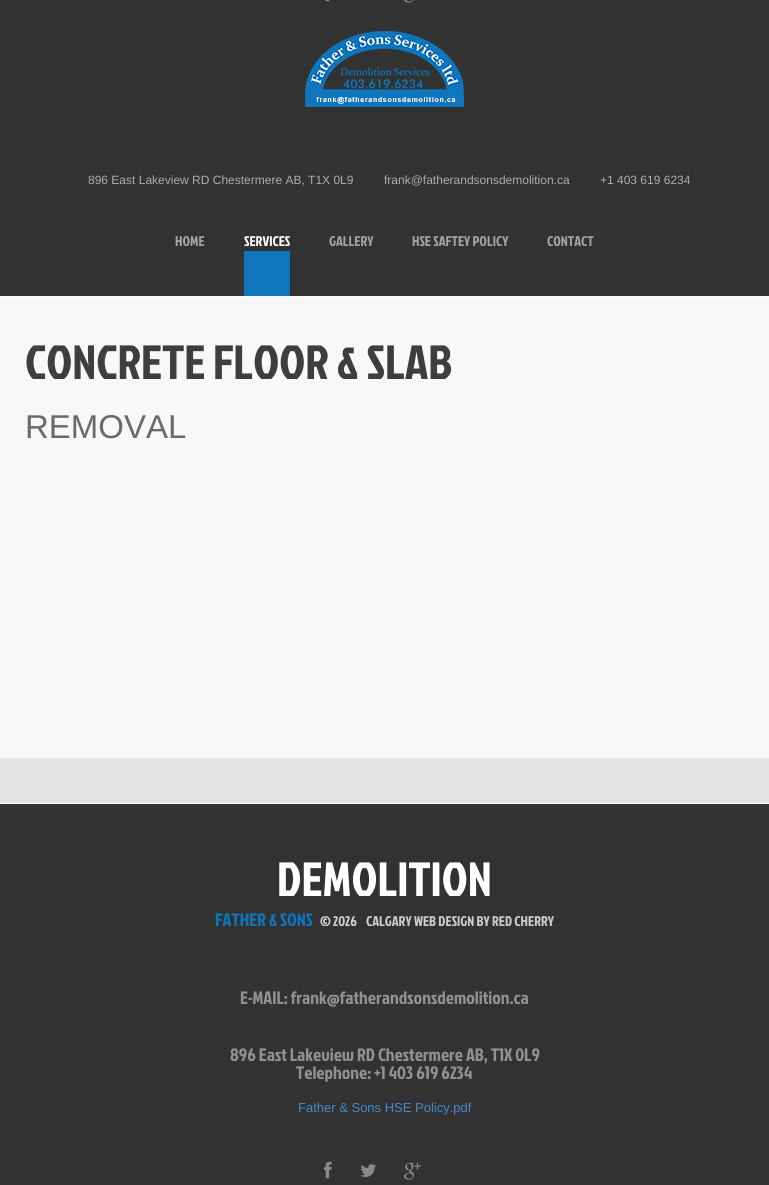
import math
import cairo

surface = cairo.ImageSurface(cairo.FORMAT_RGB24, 769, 1185)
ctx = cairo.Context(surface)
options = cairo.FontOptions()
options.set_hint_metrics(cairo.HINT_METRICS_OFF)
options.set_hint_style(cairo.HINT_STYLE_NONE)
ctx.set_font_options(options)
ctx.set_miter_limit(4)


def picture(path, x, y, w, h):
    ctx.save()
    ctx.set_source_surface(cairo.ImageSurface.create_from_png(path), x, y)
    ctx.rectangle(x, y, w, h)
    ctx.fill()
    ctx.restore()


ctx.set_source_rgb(0.196, 0.196, 0.196)
ctx.paint()
ctx.set_source_rgb(1, 1, 1)
ctx.rectangle(0, 296, 769, 1)
ctx.fill()
picture("img1.png", 325, 0, 5, 2)
picture("img2.png", 404, 0, 10, 3)
picture("img3.png", 305, 31, 159, 76)
ctx.select_font_face("Liberation Sans")
ctx.set_font_size(12)
ctx.set_source_rgb(0.678, 0.678, 0.678)
ctx.move_to(88, 184)
ctx.show_text("896 East Lakeview RD Chestermere AB, T1X 0L9")
ctx.move_to(384, 184)
ctx.show_text("frank@fatherandsonsdemolition.ca")
ctx.move_to(600, 184)
ctx.show_text("+1 403 619 6234")
ctx.select_font_face("Jockey One")
ctx.set_font_size(14)
ctx.set_source_rgb(0.643, 0.643, 0.643)
ctx.move_to(175, 246)
ctx.show_text("HOME")
ctx.set_source_rgb(1, 1, 1)
ctx.move_to(244, 246)
ctx.show_text("SERVICES")
ctx.set_source_rgb(0.055, 0.463, 0.737)
ctx.rectangle(244, 251, 46, 45)
ctx.fill()
ctx.set_source_rgb(0.643, 0.643, 0.643)
ctx.move_to(329, 246)
ctx.show_text("GALLERY")
ctx.move_to(412, 246)
ctx.show_text("HSE SAFTEY POLICY")
ctx.move_to(547, 246)
ctx.show_text("CONTACT")
ctx.set_source_rgb(0.969, 0.969, 0.969)
ctx.rectangle(0, 297, 769, 461)
ctx.fill()
ctx.set_font_size(48)
ctx.set_source_rgb(0.243, 0.243, 0.243)
ctx.move_to(25, 379)
ctx.show_text("CONCRETE FLOOR & SLAB")
ctx.select_font_face("Liberation Sans")
ctx.set_font_size(33)
ctx.set_source_rgb(0.416, 0.416, 0.416)
ctx.move_to(25, 438)
ctx.show_text("REMOVAL")
ctx.set_source_rgb(0.894, 0.894, 0.894)
ctx.rectangle(0, 758, 769, 45)
ctx.fill()
ctx.set_source_rgb(1, 1, 1)
ctx.rectangle(0, 803, 769, 1)
ctx.fill()
ctx.select_font_face("Jockey One")
ctx.set_font_size(48)
ctx.move_to(277, 896)
ctx.show_text("DEMOLITION")
ctx.set_font_size(18)
ctx.set_source_rgb(0.055, 0.463, 0.737)
ctx.move_to(215, 926)
ctx.show_text("FATHER & SONS")
ctx.set_font_size(14)
ctx.set_source_rgb(0.804, 0.804, 0.804)
ctx.move_to(320, 926)
ctx.show_text("© 2026")
ctx.move_to(366, 926)
ctx.show_text("CALGARY WEB DESIGN BY RED CHERRY")
ctx.set_font_size(18)
ctx.set_source_rgb(0.569, 0.569, 0.569)
ctx.move_to(240, 1004)
ctx.show_text("E-MAIL: frank@fatherandsonsdemolition.ca")
ctx.move_to(230, 1061)
ctx.show_text("896 East Lakeview RD Chestermere AB, T1X 0L9")
ctx.move_to(296, 1079)
ctx.show_text("Telephone: +1 403 619 6234")
ctx.select_font_face("Liberation Sans")
ctx.set_font_size(13)
ctx.set_source_rgb(0.259, 0.545, 0.792)
ctx.move_to(298, 1112)
ctx.show_text("Father & Sons HSE Policy.pdf")
picture("img4.png", 324, 1161, 8, 18)
picture("img5.png", 360, 1164, 16, 13)
picture("img6.png", 404, 1162, 17, 18)
surface.write_to_png("page.png")
